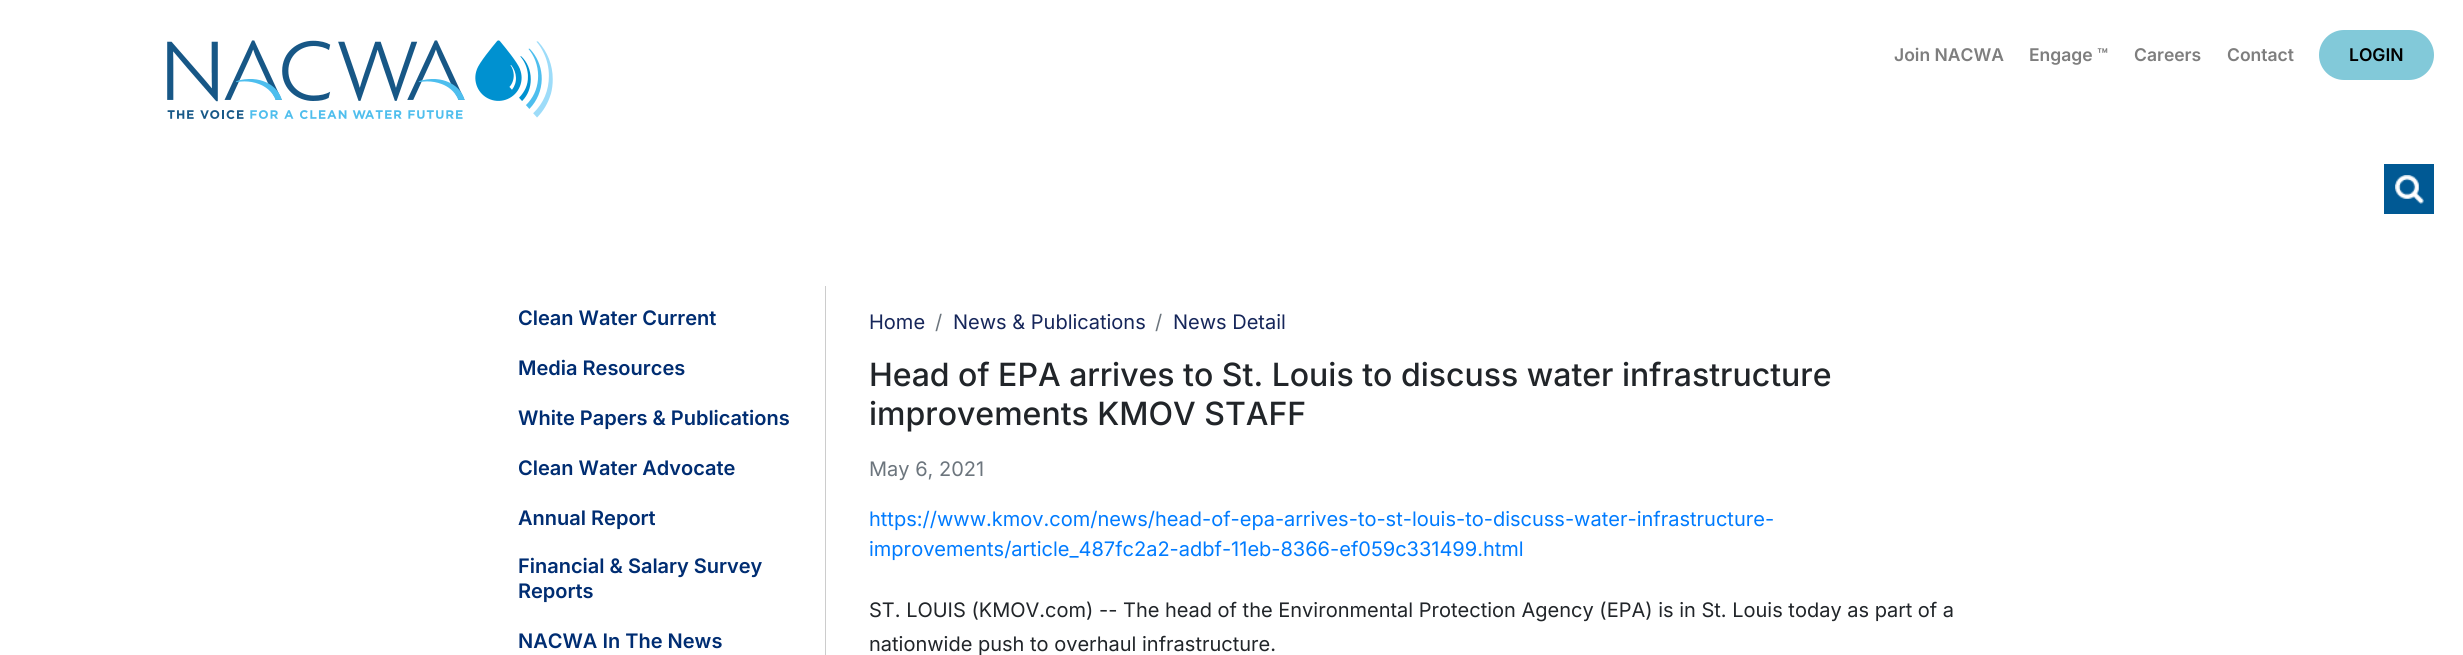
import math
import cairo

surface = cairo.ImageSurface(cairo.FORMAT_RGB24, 2463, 655)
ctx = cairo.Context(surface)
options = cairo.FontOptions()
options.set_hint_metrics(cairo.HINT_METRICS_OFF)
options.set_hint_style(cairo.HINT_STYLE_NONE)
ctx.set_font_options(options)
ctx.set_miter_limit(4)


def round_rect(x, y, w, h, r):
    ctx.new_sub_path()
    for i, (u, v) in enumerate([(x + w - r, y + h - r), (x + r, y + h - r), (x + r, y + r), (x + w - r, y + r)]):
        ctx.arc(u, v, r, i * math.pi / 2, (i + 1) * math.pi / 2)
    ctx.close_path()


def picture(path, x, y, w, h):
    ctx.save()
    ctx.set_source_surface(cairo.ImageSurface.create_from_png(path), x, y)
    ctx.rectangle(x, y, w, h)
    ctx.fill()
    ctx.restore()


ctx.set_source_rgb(1, 1, 1)
ctx.paint()
picture("img1.png", 167, 40, 386, 80)
ctx.select_font_face("Inter SemiBold")
ctx.set_font_size(17.5)
ctx.set_source_rgb(0.494, 0.494, 0.494)
ctx.move_to(1894, 61)
ctx.show_text("Join NACWA")
ctx.move_to(2029, 61)
ctx.show_text("Engage ™")
ctx.move_to(2134, 61)
ctx.show_text("Careers")
ctx.move_to(2227, 61)
ctx.show_text("Contact")
ctx.set_source_rgb(0.51, 0.788, 0.851)
round_rect(2319, 30, 115, 50, 25)
ctx.fill()
ctx.set_source_rgb(0, 0, 0)
ctx.move_to(2349, 61)
ctx.show_text("LOGIN")
ctx.set_source_rgb(0, 0.349, 0.58)
ctx.rectangle(2384, 164, 50, 50)
ctx.fill()
picture("img2.png", 2395, 175, 29, 29)
ctx.set_source_rgb(0.8, 0.8, 0.8)
ctx.rectangle(825, 286, 1, 369)
ctx.fill()
ctx.set_font_size(20)
ctx.set_source_rgb(0, 0.176, 0.447)
ctx.move_to(518, 325)
ctx.show_text("Clean Water Current")
ctx.move_to(518, 375)
ctx.show_text("Media Resources")
ctx.move_to(518, 425)
ctx.show_text("White Papers & Publications")
ctx.move_to(518, 475)
ctx.show_text("Clean Water Advocate")
ctx.move_to(518, 525)
ctx.show_text("Annual Report")
ctx.move_to(518, 573)
ctx.show_text("Financial & Salary Survey")
ctx.move_to(518, 598)
ctx.show_text("Reports")
ctx.move_to(518, 648)
ctx.show_text("NACWA In The News")
ctx.select_font_face("Inter")
ctx.set_source_rgb(0.086, 0.149, 0.353)
ctx.move_to(869, 329)
ctx.show_text("Home")
ctx.set_source_rgb(0.424, 0.459, 0.49)
ctx.move_to(935, 329)
ctx.show_text("/")
ctx.set_source_rgb(0.086, 0.149, 0.353)
ctx.move_to(953, 329)
ctx.show_text("News & Publications")
ctx.set_source_rgb(0.424, 0.459, 0.49)
ctx.move_to(1155, 329)
ctx.show_text("/")
ctx.set_source_rgb(0.086, 0.149, 0.353)
ctx.move_to(1173, 329)
ctx.show_text("News Detail")
ctx.select_font_face("Inter Medium")
ctx.set_font_size(32)
ctx.set_source_rgb(0.129, 0.145, 0.161)
ctx.move_to(869, 386)
ctx.show_text("Head of EPA arrives to St. Louis to discuss water infrastructure")
ctx.move_to(869, 425)
ctx.show_text("improvements KMOV STAFF")
ctx.select_font_face("Inter")
ctx.set_font_size(20)
ctx.set_source_rgb(0.424, 0.459, 0.49)
ctx.move_to(869, 476)
ctx.show_text("May 6, 2021")
ctx.set_source_rgb(0, 0.482, 1)
ctx.move_to(869, 526)
ctx.show_text("https://www.kmov.com/news/head-of-epa-arrives-to-st-louis-to-discuss-water-infrastructure-")
ctx.move_to(869, 556)
ctx.show_text("improvements/article_487fc2a2-adbf-11eb-8366-ef059c331499.html")
ctx.set_source_rgb(0.129, 0.145, 0.161)
ctx.move_to(869, 617)
ctx.show_text("ST. LOUIS (KMOV.com) -- The head of the Environmental Protection Agency (EPA) is in St. Louis today as part of a")
ctx.move_to(869, 651)
ctx.show_text("nationwide push to overhaul infrastructure.")
surface.write_to_png("page.png")
